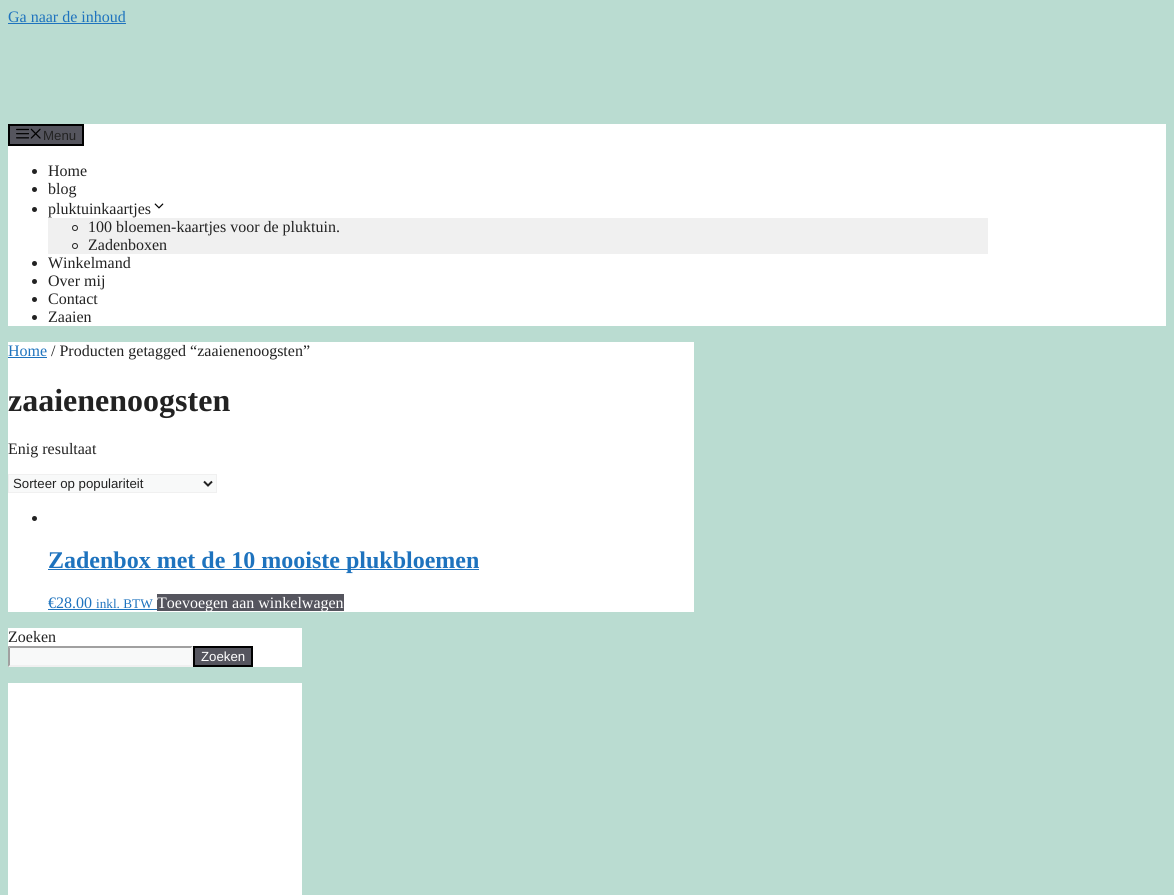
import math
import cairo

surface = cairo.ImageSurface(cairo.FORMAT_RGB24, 1174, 895)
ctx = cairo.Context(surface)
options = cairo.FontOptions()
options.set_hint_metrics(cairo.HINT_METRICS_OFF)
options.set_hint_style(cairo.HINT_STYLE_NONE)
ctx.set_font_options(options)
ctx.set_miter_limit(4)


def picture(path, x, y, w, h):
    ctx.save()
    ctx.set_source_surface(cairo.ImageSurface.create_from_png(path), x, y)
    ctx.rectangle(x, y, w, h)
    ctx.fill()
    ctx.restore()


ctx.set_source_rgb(0.729, 0.863, 0.82)
ctx.paint()
ctx.select_font_face("Liberation Serif")
ctx.set_font_size(16)
ctx.set_source_rgb(0.118, 0.451, 0.745)
ctx.move_to(8, 22)
ctx.show_text("Ga naar de inhoud")
ctx.rectangle(8, 23, 118, 1)
ctx.fill()
ctx.set_source_rgb(1, 1, 1)
ctx.rectangle(8, 124, 1158, 202)
ctx.fill()
ctx.set_source_rgb(0.333, 0.333, 0.369)
ctx.rectangle(9, 125, 74, 20)
ctx.fill_preserve()
ctx.set_source_rgb(0, 0, 0)
ctx.stroke()
picture("img1.png", 16, 128, 13, 11)
picture("img2.png", 30, 128, 11, 11)
ctx.select_font_face("Liberation Sans")
ctx.set_font_size(13.25)
ctx.set_source_rgb(0.133, 0.133, 0.133)
ctx.move_to(43, 140)
ctx.show_text("Menu")
ctx.new_path()
ctx.arc(34.5, 171.5, 2.5, 0, 2 * math.pi)
ctx.fill()
ctx.select_font_face("Liberation Serif")
ctx.set_font_size(16)
ctx.move_to(48, 176)
ctx.show_text("Home")
ctx.new_path()
ctx.arc(34.5, 189.5, 2.5, 0, 2 * math.pi)
ctx.fill()
ctx.move_to(48, 194)
ctx.show_text("blog")
ctx.move_to(48, 214)
ctx.show_text("pluktuinkaartjes")
picture("img3.png", 154, 203, 10, 6)
ctx.arc(34.5, 209.5, 2.5, 0, 2 * math.pi)
ctx.fill()
ctx.set_source_rgb(0.941, 0.941, 0.941)
ctx.rectangle(48, 218, 940, 36)
ctx.fill()
ctx.arc(75, 228, 2.5, 0, 2 * math.pi)
ctx.set_source_rgb(0.133, 0.133, 0.133)
ctx.set_line_width(1)
ctx.stroke()
ctx.move_to(88, 232)
ctx.show_text("100 bloemen-kaartjes voor de pluktuin.")
ctx.new_path()
ctx.arc(75, 246, 2.5, 0, 2 * math.pi)
ctx.stroke()
ctx.move_to(88, 250)
ctx.show_text("Zadenboxen")
ctx.new_path()
ctx.arc(34.5, 263.5, 2.5, 0, 2 * math.pi)
ctx.fill()
ctx.move_to(48, 268)
ctx.show_text("Winkelmand")
ctx.new_path()
ctx.arc(34.5, 281.5, 2.5, 0, 2 * math.pi)
ctx.fill()
ctx.move_to(48, 286)
ctx.show_text("Over mij")
ctx.new_path()
ctx.arc(34.5, 299.5, 2.5, 0, 2 * math.pi)
ctx.fill()
ctx.move_to(48, 304)
ctx.show_text("Contact")
ctx.new_path()
ctx.arc(34.5, 317.5, 2.5, 0, 2 * math.pi)
ctx.fill()
ctx.move_to(48, 322)
ctx.show_text("Zaaien")
ctx.set_source_rgb(1, 1, 1)
ctx.rectangle(8, 342, 686, 270)
ctx.fill()
ctx.set_source_rgb(0.118, 0.451, 0.745)
ctx.move_to(8, 356)
ctx.show_text("Home")
ctx.rectangle(8, 357, 39, 1)
ctx.fill()
ctx.set_source_rgb(0.133, 0.133, 0.133)
ctx.move_to(51, 356)
ctx.show_text("/ Producten getagged “zaaienenoogsten”")
ctx.select_font_face("Liberation Serif", cairo.FONT_SLANT_NORMAL, cairo.FONT_WEIGHT_BOLD)
ctx.set_font_size(32)
ctx.move_to(8, 411)
ctx.show_text("zaaienenoogsten")
ctx.select_font_face("Liberation Serif")
ctx.set_font_size(16)
ctx.move_to(8, 454)
ctx.show_text("Enig resultaat")
ctx.set_source_rgb(0.969, 0.973, 0.976)
ctx.rectangle(8.5, 474.5, 208, 18)
ctx.fill_preserve()
ctx.set_source_rgb(0.941, 0.941, 0.941)
ctx.stroke()
ctx.new_path()
ctx.move_to(204, 481.5)
ctx.line_to(208, 485.5)
ctx.line_to(212, 481.5)
ctx.set_source_rgb(0.133, 0.133, 0.133)
ctx.set_line_width(2)
ctx.stroke()
ctx.select_font_face("Liberation Sans")
ctx.set_font_size(13.25)
ctx.move_to(13, 488)
ctx.show_text("Sorteer op populariteit")
ctx.new_path()
ctx.arc(34.5, 518.5, 2.5, 0, 2 * math.pi)
ctx.fill()
ctx.set_source_rgb(0.118, 0.451, 0.745)
ctx.rectangle(48, 569, 431, 1)
ctx.fill()
ctx.select_font_face("Liberation Serif", cairo.FONT_SLANT_NORMAL, cairo.FONT_WEIGHT_BOLD)
ctx.set_font_size(24)
ctx.move_to(48, 568)
ctx.show_text("Zadenbox met de 10 mooiste plukbloemen")
ctx.select_font_face("Liberation Serif")
ctx.set_font_size(16)
ctx.move_to(48, 608)
ctx.show_text("€28.00")
ctx.set_font_size(13.25)
ctx.move_to(96, 608)
ctx.show_text("inkl. BTW")
ctx.rectangle(48, 609, 109, 1)
ctx.fill()
ctx.set_source_rgb(0.333, 0.333, 0.369)
ctx.rectangle(157, 594, 187, 17)
ctx.fill()
ctx.set_font_size(16)
ctx.set_source_rgb(1, 1, 1)
ctx.move_to(157, 608)
ctx.show_text("Toevoegen aan winkelwagen")
ctx.rectangle(8, 628, 294, 39)
ctx.fill()
ctx.set_source_rgb(0.133, 0.133, 0.133)
ctx.move_to(8, 642)
ctx.show_text("Zoeken")
ctx.set_source_rgb(0.969, 0.973, 0.976)
ctx.rectangle(8, 646, 185, 21)
ctx.fill()
ctx.set_source_rgb(0.627, 0.627, 0.627)
ctx.new_path()
ctx.move_to(8, 646)
ctx.line_to(193, 646)
ctx.line_to(191, 648)
ctx.line_to(10, 648)
ctx.close_path()
ctx.fill()
ctx.set_source_rgb(0.941, 0.941, 0.941)
ctx.new_path()
ctx.move_to(193, 646)
ctx.line_to(193, 667)
ctx.line_to(191, 665)
ctx.line_to(191, 648)
ctx.close_path()
ctx.fill()
ctx.new_path()
ctx.move_to(193, 667)
ctx.line_to(8, 667)
ctx.line_to(10, 665)
ctx.line_to(191, 665)
ctx.close_path()
ctx.fill()
ctx.set_source_rgb(0.627, 0.627, 0.627)
ctx.new_path()
ctx.move_to(8, 667)
ctx.line_to(8, 646)
ctx.line_to(10, 648)
ctx.line_to(10, 665)
ctx.close_path()
ctx.fill()
ctx.set_source_rgb(0.333, 0.333, 0.369)
ctx.rectangle(194, 647, 58, 19)
ctx.fill_preserve()
ctx.set_source_rgb(0, 0, 0)
ctx.stroke()
ctx.select_font_face("Liberation Sans")
ctx.set_font_size(13.25)
ctx.set_source_rgb(1, 1, 1)
ctx.move_to(201, 661)
ctx.show_text("Zoeken")
ctx.rectangle(8, 683, 294, 212)
ctx.fill()
surface.write_to_png("page.png")
